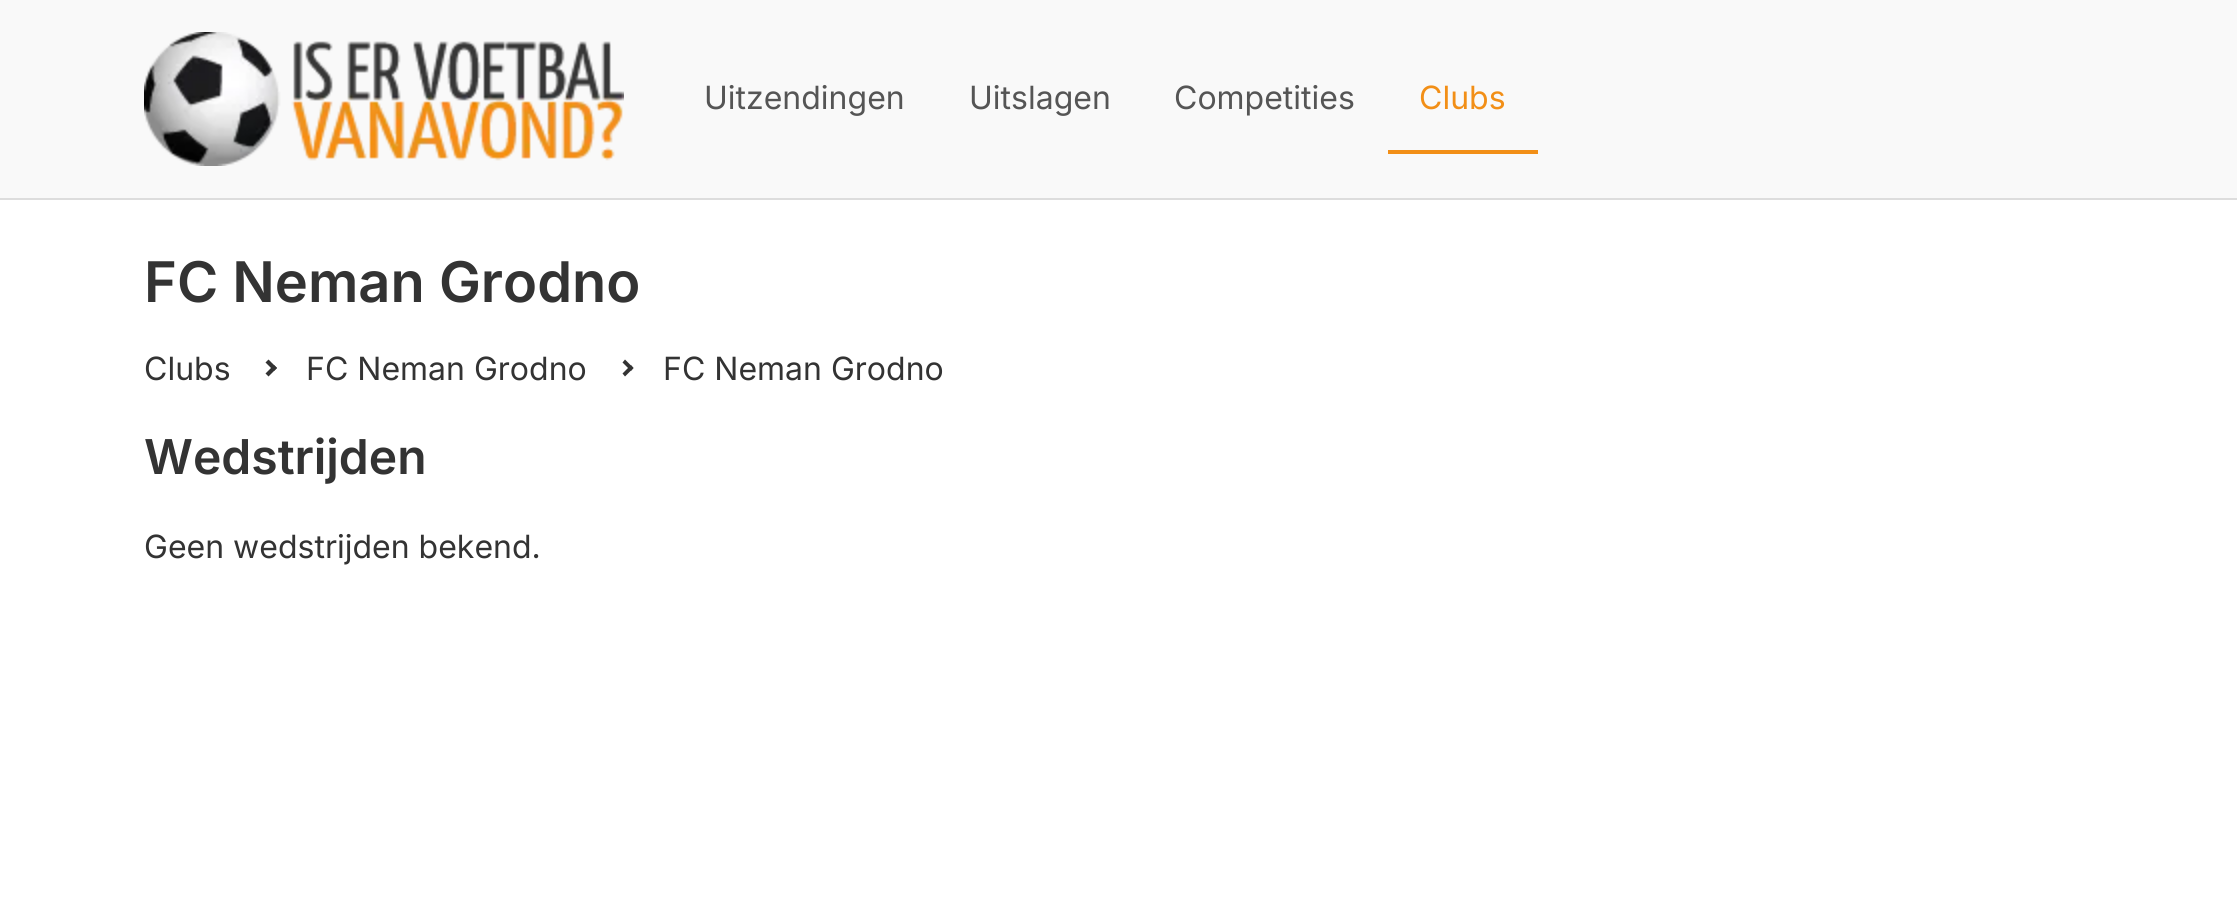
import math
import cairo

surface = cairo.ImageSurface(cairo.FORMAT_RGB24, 2237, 914)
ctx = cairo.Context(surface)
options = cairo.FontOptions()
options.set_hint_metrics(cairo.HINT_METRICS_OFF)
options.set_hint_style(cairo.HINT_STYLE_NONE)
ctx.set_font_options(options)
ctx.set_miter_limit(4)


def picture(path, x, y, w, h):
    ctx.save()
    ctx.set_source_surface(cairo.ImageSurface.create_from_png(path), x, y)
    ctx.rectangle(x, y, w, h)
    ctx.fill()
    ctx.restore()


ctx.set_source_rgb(1, 1, 1)
ctx.paint()
ctx.set_source_rgb(0.973, 0.973, 0.973)
ctx.rectangle(0, 0, 2237, 198)
ctx.fill()
ctx.set_source_rgb(0.867, 0.867, 0.867)
ctx.rectangle(0, 198, 2237, 2)
ctx.fill()
picture("img1.png", 144, 32, 480, 134)
ctx.select_font_face("Inter")
ctx.set_font_size(32)
ctx.set_source_rgb(0.333, 0.333, 0.333)
ctx.move_to(704, 109)
ctx.show_text("Uitzendingen")
ctx.move_to(969, 109)
ctx.show_text("Uitslagen")
ctx.move_to(1174, 109)
ctx.show_text("Competities")
ctx.set_source_rgb(0.949, 0.561, 0.09)
ctx.rectangle(1388, 150, 150, 4)
ctx.fill()
ctx.move_to(1419, 109)
ctx.show_text("Clubs")
ctx.select_font_face("Inter SemiBold")
ctx.set_font_size(56)
ctx.set_source_rgb(0.2, 0.2, 0.2)
ctx.move_to(144, 302)
ctx.show_text("FC Neman Grodno")
ctx.select_font_face("Inter")
ctx.set_font_size(32)
ctx.move_to(144, 380)
ctx.show_text("Clubs")
ctx.new_path()
ctx.move_to(268.5, 359.5)
ctx.line_to(277, 368)
ctx.line_to(274, 371)
ctx.line_to(265.5, 362.5)
ctx.close_path()
ctx.fill()
ctx.new_path()
ctx.move_to(274, 365)
ctx.line_to(277, 368)
ctx.line_to(268.5, 376.5)
ctx.line_to(265.5, 373.5)
ctx.close_path()
ctx.fill()
ctx.move_to(306, 380)
ctx.show_text("FC Neman Grodno")
ctx.new_path()
ctx.move_to(625, 359.5)
ctx.line_to(633.5, 368)
ctx.line_to(631, 371)
ctx.line_to(622.5, 362.5)
ctx.close_path()
ctx.fill()
ctx.new_path()
ctx.move_to(631, 365)
ctx.line_to(633.5, 368)
ctx.line_to(625, 376.5)
ctx.line_to(622.5, 373.5)
ctx.close_path()
ctx.fill()
ctx.move_to(663, 380)
ctx.show_text("FC Neman Grodno")
ctx.select_font_face("Inter SemiBold")
ctx.set_font_size(48)
ctx.move_to(144, 474)
ctx.show_text("Wedstrijden")
ctx.select_font_face("Inter")
ctx.set_font_size(32)
ctx.move_to(144, 558)
ctx.show_text("Geen wedstrijden bekend.")
surface.write_to_png("page.png")
